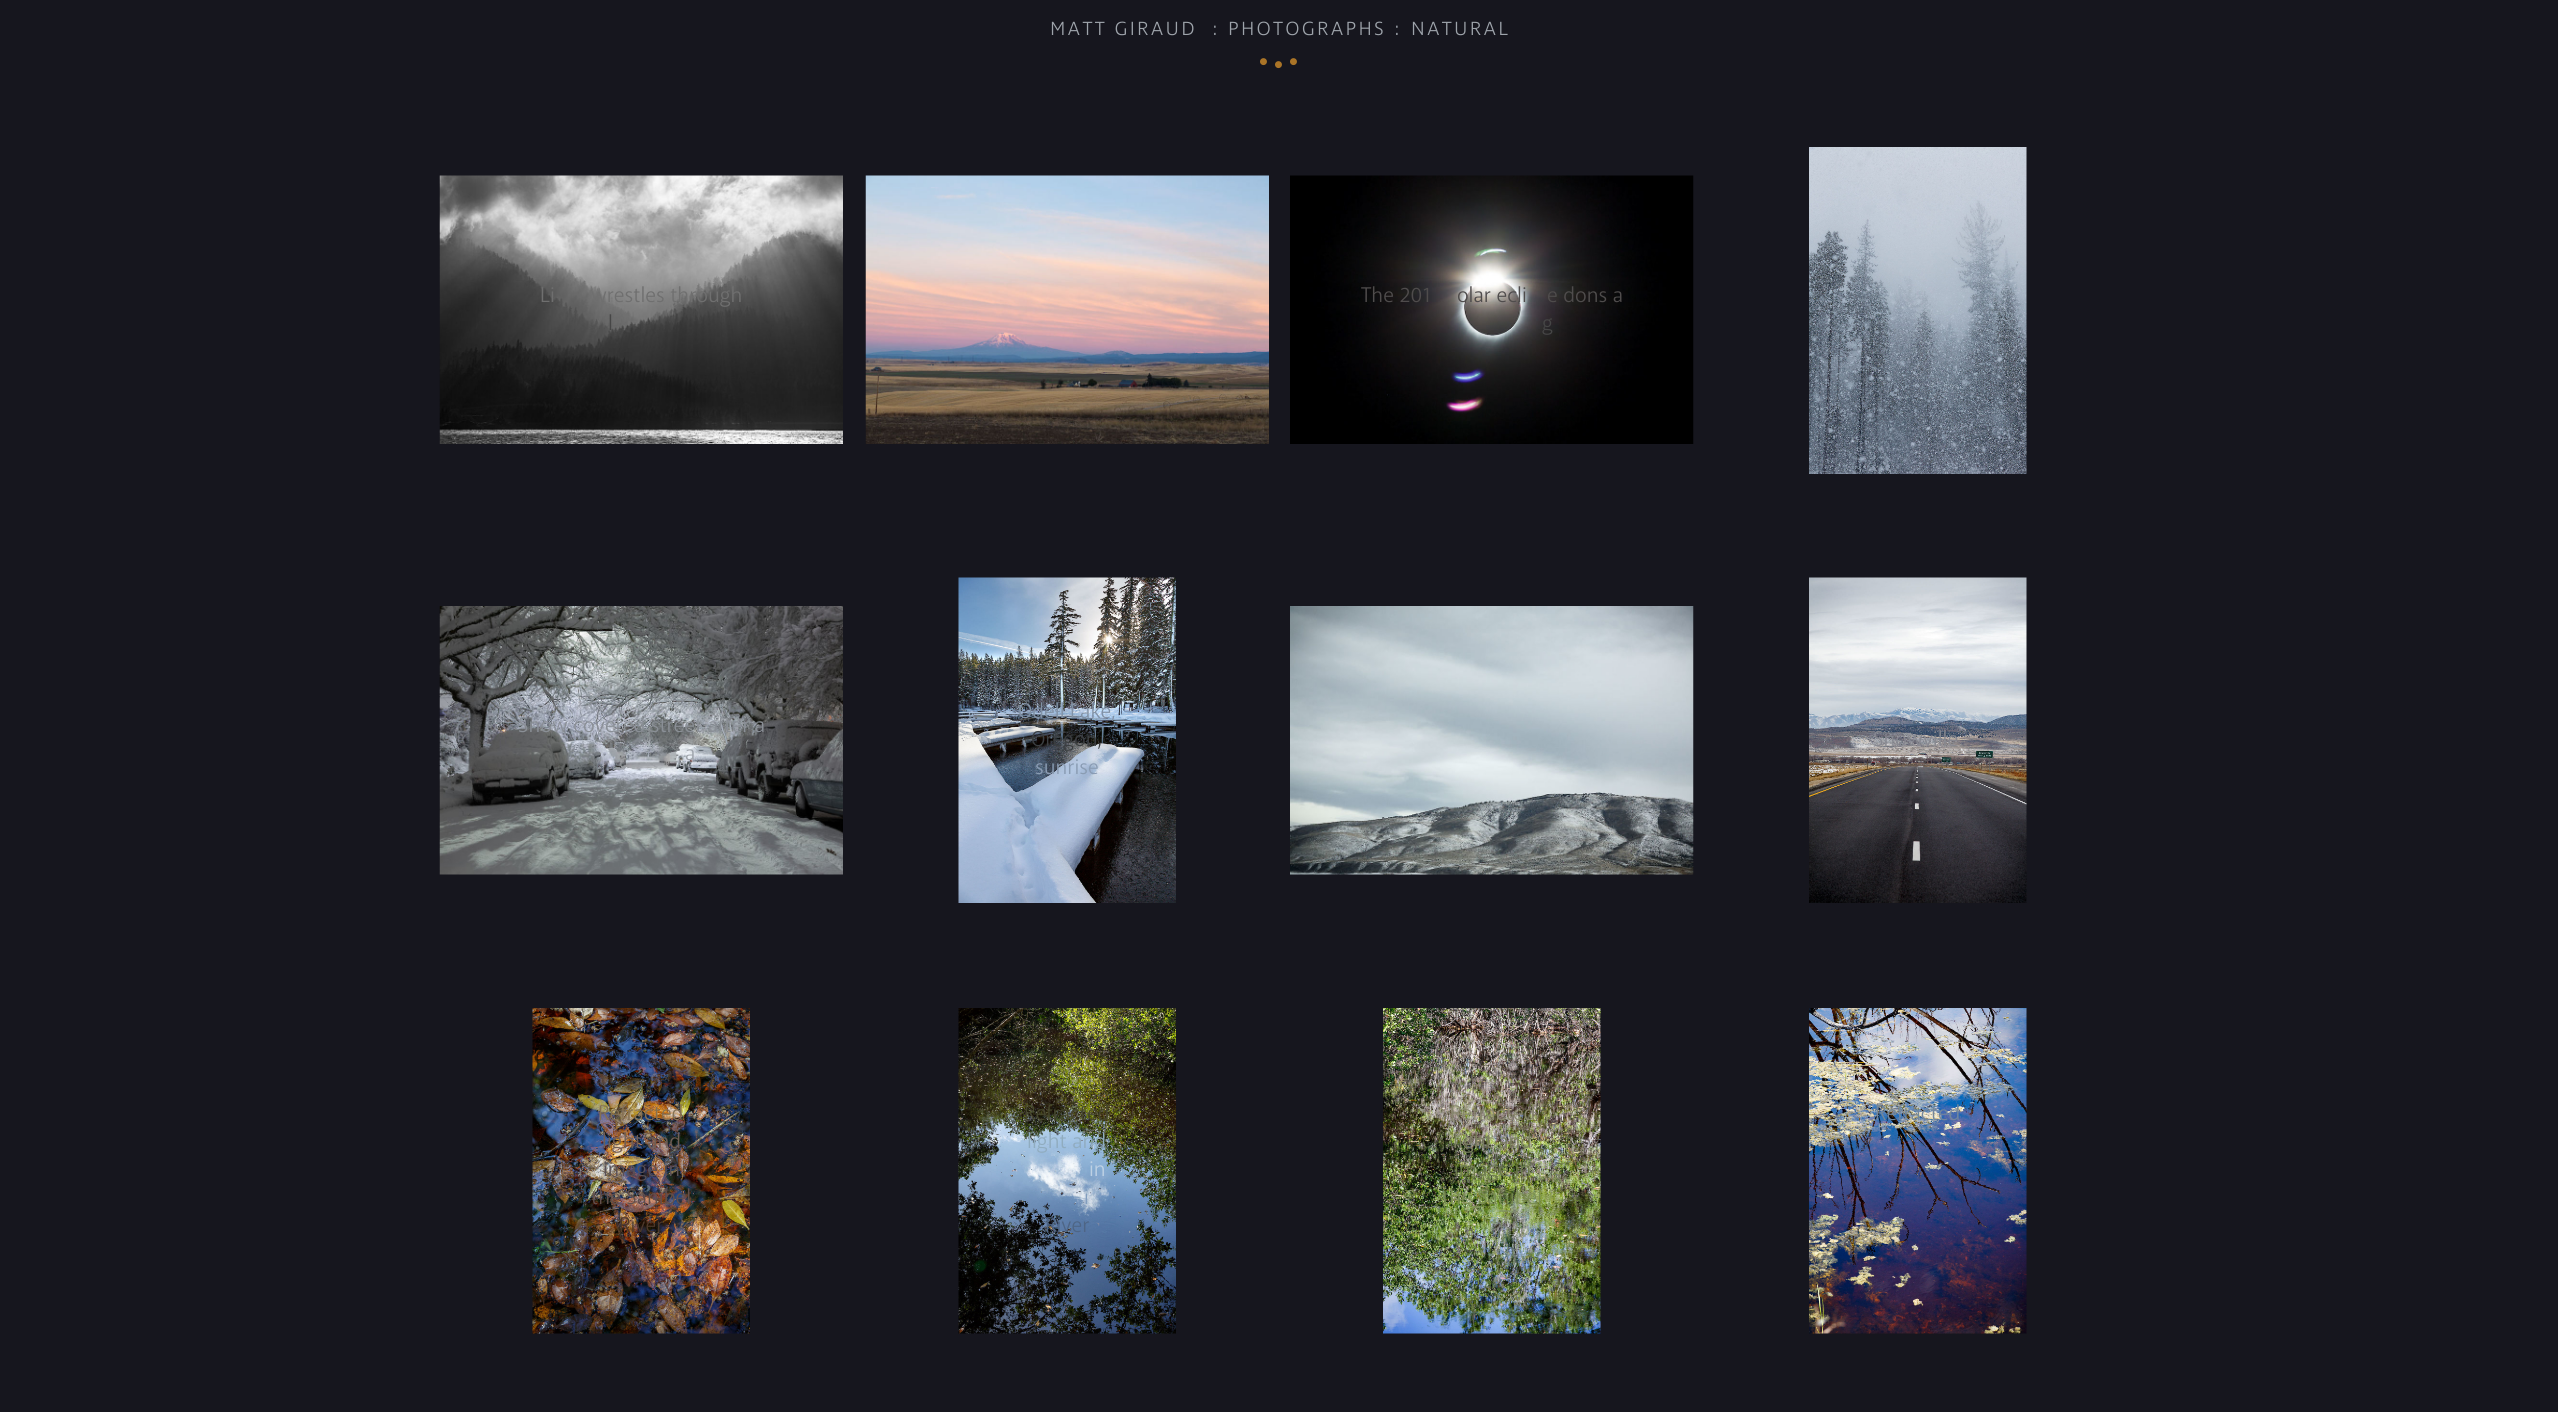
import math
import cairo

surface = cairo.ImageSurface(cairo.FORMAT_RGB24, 2558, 1412)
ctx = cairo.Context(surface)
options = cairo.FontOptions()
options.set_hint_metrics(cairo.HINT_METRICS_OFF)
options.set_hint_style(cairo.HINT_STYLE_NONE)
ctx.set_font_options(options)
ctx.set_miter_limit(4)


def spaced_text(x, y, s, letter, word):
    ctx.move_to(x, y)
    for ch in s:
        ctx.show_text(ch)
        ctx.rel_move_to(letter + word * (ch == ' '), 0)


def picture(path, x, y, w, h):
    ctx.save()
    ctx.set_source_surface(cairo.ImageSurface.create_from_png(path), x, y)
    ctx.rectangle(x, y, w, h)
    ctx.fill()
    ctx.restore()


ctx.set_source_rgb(0.086, 0.086, 0.118)
ctx.paint()
ctx.select_font_face("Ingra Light")
ctx.set_font_size(19.5)
ctx.set_source_rgb(0.62, 0.643, 0.671)
spaced_text(1050, 35, "MATT GIRAUD", 2.25, 0)
spaced_text(1212, 35, ":", 2.25, 0)
spaced_text(1228, 35, "PHOTOGRAPHS", 2.25, 0)
spaced_text(1394, 35, ":", 2.25, 0)
spaced_text(1411, 35, "NATURAL", 2.25, 0)
picture("img1.png", 1260, 58, 7, 8)
picture("img1.png", 1275, 61, 7, 8)
picture("img1.png", 1290, 58, 7, 8)
picture("img2.png", 439, 175, 404, 269)
ctx.select_font_face("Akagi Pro")
ctx.set_font_size(21.6)
ctx.set_source_rgb(0.435, 0.435, 0.435)
ctx.move_to(540, 302)
ctx.show_text("Li")
ctx.move_to(591, 302)
ctx.show_text("wrestles through")
ctx.set_source_rgb(0.275, 0.275, 0.275)
ctx.move_to(608, 330)
ctx.show_text("l")
picture("img3.png", 865, 175, 404, 269)
picture("img4.png", 1290, 175, 404, 269)
ctx.set_source_rgb(0.31, 0.298, 0.298)
ctx.move_to(1361, 302)
ctx.show_text("The 201")
ctx.move_to(1457, 302)
ctx.show_text("olar ecli")
ctx.move_to(1547, 302)
ctx.show_text("e dons a")
ctx.set_source_rgb(0.275, 0.275, 0.275)
ctx.move_to(1542, 330)
ctx.show_text("g")
picture("img5.png", 1809, 147, 218, 327)
picture("img6.png", 439, 606, 404, 269)
ctx.set_source_rgb(0.541, 0.561, 0.588)
ctx.move_to(518, 732)
ctx.show_text("Snow covered street after a")
ctx.set_source_rgb(0.62, 0.643, 0.671)
ctx.move_to(685, 760)
ctx.show_text("a")
picture("img7.png", 958, 577, 218, 326)
ctx.set_source_rgb(0.506, 0.569, 0.647)
ctx.move_to(1018, 718)
ctx.show_text("Odell Lake,")
ctx.set_source_rgb(0.231, 0.243, 0.255)
ctx.move_to(1031, 746)
ctx.show_text("Oregon,")
ctx.set_source_rgb(0.541, 0.612, 0.702)
ctx.move_to(1035, 774)
ctx.show_text("sunrise")
picture("img8.png", 1290, 606, 404, 269)
picture("img9.png", 1809, 577, 218, 326)
ctx.set_source_rgb(0.529, 0.533, 0.565)
ctx.move_to(1873, 746)
ctx.show_text("Snowville")
ctx.set_source_rgb(0.4, 0.373, 0.361)
ctx.move_to(1958, 774)
ctx.show_text(".")
picture("img10.png", 532, 1008, 218, 326)
ctx.set_source_rgb(0.518, 0.439, 0.322)
ctx.move_to(598, 1120)
ctx.show_text("Refracted")
ctx.set_source_rgb(0.435, 0.369, 0.333)
ctx.move_to(602, 1148)
ctx.show_text("light and")
ctx.set_source_rgb(0.349, 0.314, 0.337)
ctx.move_to(603, 1176)
ctx.show_text("image in")
ctx.set_source_rgb(0.38, 0.31, 0.298)
ctx.move_to(591, 1204)
ctx.show_text("the Sanibel")
ctx.set_source_rgb(0.302, 0.22, 0.161)
ctx.move_to(619, 1232)
ctx.show_text("River")
picture("img11.png", 958, 1008, 218, 326)
ctx.set_source_rgb(0.275, 0.278, 0.176)
ctx.move_to(1024, 1120)
ctx.show_text("Refracted")
ctx.set_source_rgb(0.565, 0.675, 0.749)
ctx.move_to(1027, 1148)
ctx.show_text("light and")
ctx.set_source_rgb(0.745, 0.82, 0.894)
ctx.move_to(1089, 1176)
ctx.show_text("in")
ctx.set_source_rgb(0.506, 0.616, 0.745)
ctx.move_to(1084, 1204)
ctx.show_text("i")
ctx.set_source_rgb(0.306, 0.396, 0.522)
ctx.move_to(1045, 1232)
ctx.show_text("River")
picture("img12.png", 1383, 1008, 218, 326)
ctx.set_source_rgb(0.533, 0.525, 0.431)
ctx.move_to(1450, 1120)
ctx.show_text("Refracted")
ctx.set_source_rgb(0.482, 0.498, 0.376)
ctx.move_to(1453, 1148)
ctx.show_text("light and")
ctx.set_source_rgb(0.427, 0.478, 0.302)
ctx.move_to(1454, 1176)
ctx.show_text("image in")
ctx.set_source_rgb(0.475, 0.549, 0.322)
ctx.move_to(1442, 1204)
ctx.show_text("the Sanibel")
picture("img13.png", 1809, 1008, 218, 326)
ctx.set_source_rgb(0.451, 0.529, 0.612)
ctx.move_to(1875, 1120)
ctx.show_text("Refracted")
surface.write_to_png("page.png")
